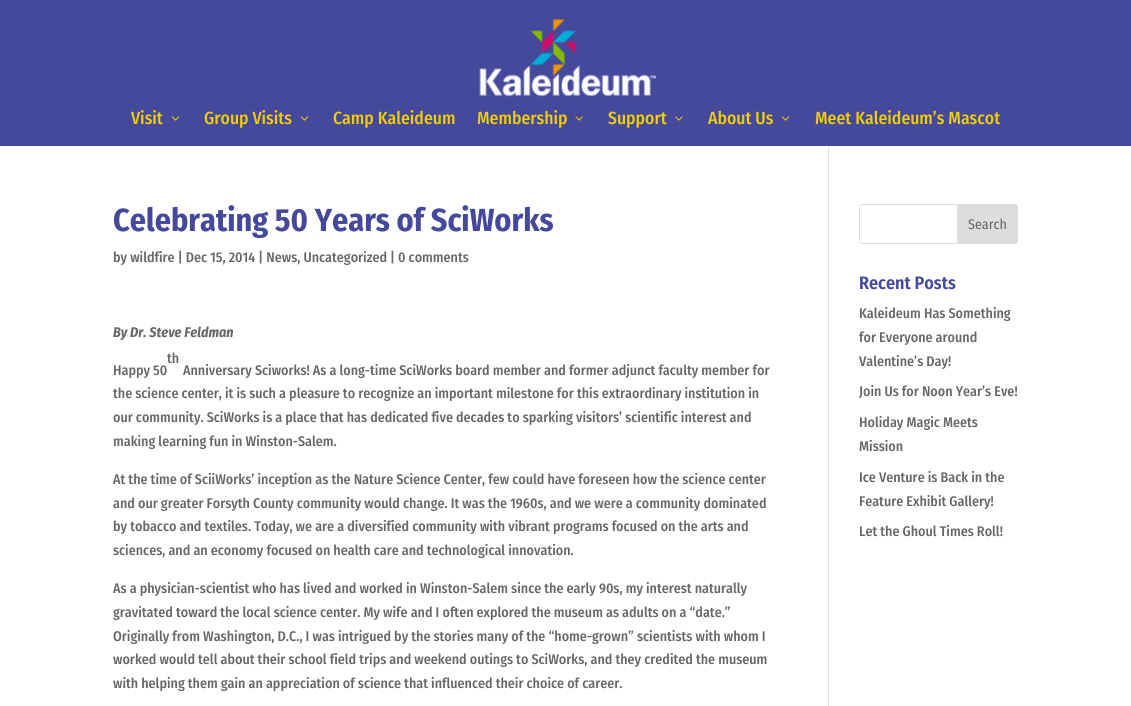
import math
import cairo

surface = cairo.ImageSurface(cairo.FORMAT_RGB24, 1131, 706)
ctx = cairo.Context(surface)
options = cairo.FontOptions()
options.set_hint_metrics(cairo.HINT_METRICS_OFF)
options.set_hint_style(cairo.HINT_STYLE_NONE)
ctx.set_font_options(options)
ctx.set_miter_limit(4)


def round_rect(x, y, w, h, r):
    ctx.new_sub_path()
    for i, (u, v) in enumerate([(x + w - r, y + h - r), (x + r, y + h - r), (x + r, y + r), (x + w - r, y + r)]):
        ctx.arc(u, v, r, i * math.pi / 2, (i + 1) * math.pi / 2)
    ctx.close_path()


def picture(path, x, y, w, h):
    ctx.save()
    ctx.set_source_surface(cairo.ImageSurface.create_from_png(path), x, y)
    ctx.rectangle(x, y, w, h)
    ctx.fill()
    ctx.restore()


ctx.set_source_rgb(1, 1, 1)
ctx.paint()
ctx.set_source_rgb(0.267, 0.286, 0.612)
ctx.rectangle(0, 0, 1131, 146)
ctx.fill()
picture("img1.png", 479, 19, 178, 78)
ctx.select_font_face("Fira Sans Condensed Medium")
ctx.set_font_size(17.6)
ctx.set_source_rgb(0.949, 0.804, 0)
ctx.move_to(131, 124)
ctx.show_text("Visit")
picture("img2.png", 171, 116, 9, 5)
ctx.move_to(204, 124)
ctx.show_text("Group Visits")
picture("img3.png", 300, 116, 9, 5)
ctx.move_to(333, 124)
ctx.show_text("Camp Kaleideum")
ctx.move_to(477, 124)
ctx.show_text("Membership")
picture("img4.png", 575, 116, 8, 5)
ctx.move_to(608, 124)
ctx.show_text("Support")
picture("img5.png", 675, 116, 8, 5)
ctx.move_to(708, 124)
ctx.show_text("About Us")
picture("img6.png", 781, 116, 9, 5)
ctx.move_to(815, 124)
ctx.show_text("Meet Kaleideum’s Mascot")
ctx.set_source_rgb(0.886, 0.886, 0.886)
ctx.rectangle(828, 146, 1, 560)
ctx.fill()
ctx.select_font_face("Fira Sans Condensed", cairo.FONT_SLANT_NORMAL, cairo.FONT_WEIGHT_BOLD)
ctx.set_font_size(32)
ctx.set_source_rgb(0.267, 0.286, 0.612)
ctx.move_to(113, 231)
ctx.show_text("Celebrating 50 Years of SciWorks")
ctx.select_font_face("Fira Sans Condensed Medium")
ctx.set_font_size(14)
ctx.set_source_rgb(0.4, 0.4, 0.4)
ctx.move_to(113, 262)
ctx.show_text("by wildfire | Dec 15, 2014 | News, Uncategorized | 0 comments")
ctx.select_font_face("Fira Sans Condensed", cairo.FONT_SLANT_ITALIC, cairo.FONT_WEIGHT_BOLD)
ctx.move_to(113, 337)
ctx.show_text("By Dr. Steve Feldman")
ctx.select_font_face("Fira Sans Condensed Medium")
ctx.move_to(167, 363)
ctx.show_text("th")
ctx.move_to(113, 375)
ctx.show_text("Happy 50")
ctx.move_to(183, 375)
ctx.show_text("Anniversary Sciworks! As a long-time SciWorks board member and former adjunct faculty member for")
ctx.move_to(113, 398)
ctx.show_text("the science center, it is such a pleasure to recognize an important milestone for this extraordinary institution in")
ctx.move_to(113, 422)
ctx.show_text("our community. SciWorks is a place that has dedicated five decades to sparking visitors’ scientific interest and")
ctx.move_to(113, 446)
ctx.show_text("making learning fun in Winston-Salem.")
ctx.move_to(113, 484)
ctx.show_text("At the time of SciiWorks’ inception as the Nature Science Center, few could have foreseen how the science center")
ctx.move_to(113, 508)
ctx.show_text("and our greater Forsyth County community would change. It was the 1960s, and we were a community dominated")
ctx.move_to(113, 531)
ctx.show_text("by tobacco and textiles. Today, we are a diversified community with vibrant programs focused on the arts and")
ctx.move_to(113, 555)
ctx.show_text("sciences, and an economy focused on health care and technological innovation.")
ctx.move_to(113, 593)
ctx.show_text("As a physician-scientist who has lived and worked in Winston-Salem since the early 90s, my interest naturally")
ctx.move_to(113, 617)
ctx.show_text("gravitated toward the local science center. My wife and I often explored the museum as adults on a “date.”")
ctx.move_to(113, 641)
ctx.show_text("Originally from Washington, D.C., I was intrigued by the stories many of the “home-grown” scientists with whom I")
ctx.move_to(113, 664)
ctx.show_text("worked would tell about their school field trips and weekend outings to SciWorks, and they credited the museum")
ctx.move_to(113, 688)
ctx.show_text("with helping them gain an appreciation of science that influenced their choice of career.")
round_rect(859.5, 204.5, 158, 39, 2.5)
ctx.set_source_rgb(0.867, 0.867, 0.867)
ctx.set_line_width(1)
ctx.stroke()
ctx.new_path()
ctx.move_to(957.5, 204.5)
ctx.line_to(1015, 204.5)
ctx.curve_to(1016.5, 204.5, 1017.5, 205.5, 1017.5, 207)
ctx.line_to(1017.5, 241)
ctx.curve_to(1017.5, 242.5, 1016.5, 243.5, 1015, 243.5)
ctx.line_to(957.5, 243.5)
ctx.close_path()
ctx.fill_preserve()
ctx.stroke()
ctx.select_font_face("Fira Sans Condensed")
ctx.set_source_rgb(0.4, 0.4, 0.4)
ctx.move_to(968, 229)
ctx.show_text("Search")
ctx.select_font_face("Fira Sans Condensed SemiBold")
ctx.set_font_size(18)
ctx.set_source_rgb(0.267, 0.286, 0.612)
ctx.move_to(859, 289)
ctx.show_text("Recent Posts")
ctx.select_font_face("Fira Sans Condensed Medium")
ctx.set_font_size(14)
ctx.set_source_rgb(0.4, 0.4, 0.4)
ctx.move_to(859, 318)
ctx.show_text("Kaleideum Has Something")
ctx.move_to(859, 342)
ctx.show_text("for Everyone around")
ctx.move_to(859, 366)
ctx.show_text("Valentine’s Day!")
ctx.move_to(859, 396)
ctx.show_text("Join Us for Noon Year’s Eve!")
ctx.move_to(859, 427)
ctx.show_text("Holiday Magic Meets")
ctx.move_to(859, 451)
ctx.show_text("Mission")
ctx.move_to(859, 482)
ctx.show_text("Ice Venture is Back in the")
ctx.move_to(859, 506)
ctx.show_text("Feature Exhibit Gallery!")
ctx.move_to(859, 536)
ctx.show_text("Let the Ghoul Times Roll!")
surface.write_to_png("page.png")
